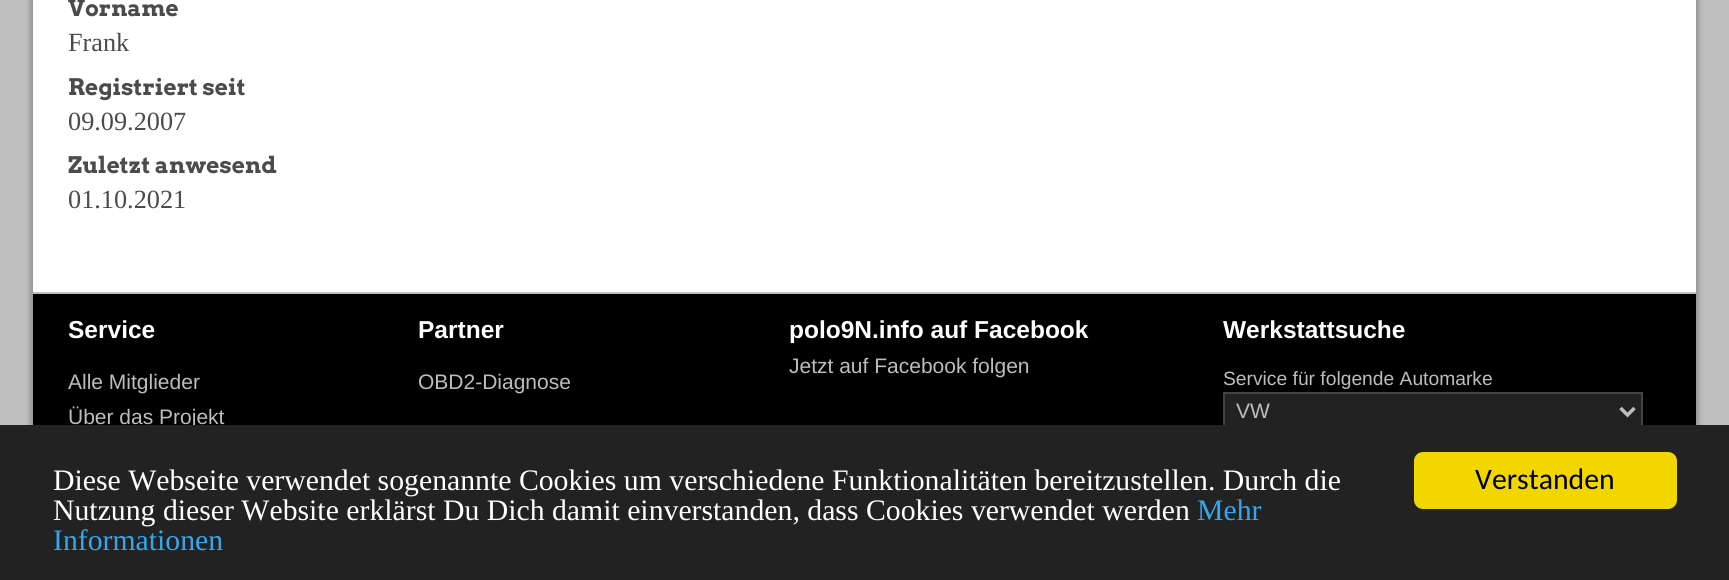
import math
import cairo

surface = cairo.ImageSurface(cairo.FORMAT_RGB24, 1729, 580)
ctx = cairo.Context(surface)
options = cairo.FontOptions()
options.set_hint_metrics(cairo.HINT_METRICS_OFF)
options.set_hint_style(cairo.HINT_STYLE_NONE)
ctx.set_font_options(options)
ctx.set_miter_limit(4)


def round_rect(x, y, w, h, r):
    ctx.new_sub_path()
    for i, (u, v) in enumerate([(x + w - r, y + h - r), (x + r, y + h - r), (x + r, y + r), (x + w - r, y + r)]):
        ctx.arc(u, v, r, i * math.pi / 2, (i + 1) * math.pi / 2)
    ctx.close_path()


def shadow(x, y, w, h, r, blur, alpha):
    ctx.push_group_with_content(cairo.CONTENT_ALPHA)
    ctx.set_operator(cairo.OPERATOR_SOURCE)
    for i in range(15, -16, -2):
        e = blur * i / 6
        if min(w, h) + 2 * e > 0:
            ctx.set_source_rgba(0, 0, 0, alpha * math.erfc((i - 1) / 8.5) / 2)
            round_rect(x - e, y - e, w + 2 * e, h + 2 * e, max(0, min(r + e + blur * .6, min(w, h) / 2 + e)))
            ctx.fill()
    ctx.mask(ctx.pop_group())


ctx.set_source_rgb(0.749, 0.749, 0.749)
ctx.paint()
ctx.set_source_rgb(0.576, 0.576, 0.576)
shadow(30, -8, 1662, 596, 0, 2.5, 1)
shadow(37, -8, 1662, 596, 0, 2.5, 1)
ctx.set_source_rgb(1, 1, 1)
ctx.rectangle(33, 0, 1663, 292)
ctx.fill()
ctx.select_font_face("Arvo", cairo.FONT_SLANT_NORMAL, cairo.FONT_WEIGHT_BOLD)
ctx.set_font_size(22.75)
ctx.set_source_rgb(0.294, 0.294, 0.302)
ctx.move_to(68, 16)
ctx.show_text("Vorname")
ctx.select_font_face("Liberation Serif")
ctx.set_font_size(26.25)
ctx.move_to(68, 51)
ctx.show_text("Frank")
ctx.select_font_face("Arvo", cairo.FONT_SLANT_NORMAL, cairo.FONT_WEIGHT_BOLD)
ctx.set_font_size(22.75)
ctx.move_to(68, 95)
ctx.show_text("Registriert seit")
ctx.select_font_face("Liberation Serif")
ctx.set_font_size(26.25)
ctx.move_to(68, 130)
ctx.show_text("09.09.2007")
ctx.select_font_face("Arvo", cairo.FONT_SLANT_NORMAL, cairo.FONT_WEIGHT_BOLD)
ctx.set_font_size(22.75)
ctx.move_to(68, 173)
ctx.show_text("Zuletzt anwesend")
ctx.select_font_face("Liberation Serif")
ctx.set_font_size(26.25)
ctx.move_to(68, 208)
ctx.show_text("01.10.2021")
ctx.set_source_rgb(0, 0, 0)
ctx.rectangle(33, 294, 1663, 131)
ctx.fill()
ctx.set_source_rgb(0.741, 0.741, 0.741)
ctx.rectangle(33, 292, 1663, 2)
ctx.fill()
ctx.select_font_face("Liberation Sans", cairo.FONT_SLANT_NORMAL, cairo.FONT_WEIGHT_BOLD)
ctx.set_font_size(24.5)
ctx.set_source_rgb(1, 1, 1)
ctx.move_to(68, 338)
ctx.show_text("Service")
ctx.select_font_face("Liberation Sans")
ctx.set_font_size(21)
ctx.set_source_rgb(0.741, 0.741, 0.741)
ctx.move_to(68, 389)
ctx.show_text("Alle Mitglieder")
ctx.move_to(68, 424)
ctx.show_text("Über das Projekt")
ctx.select_font_face("Liberation Sans", cairo.FONT_SLANT_NORMAL, cairo.FONT_WEIGHT_BOLD)
ctx.set_font_size(24.5)
ctx.set_source_rgb(1, 1, 1)
ctx.move_to(418, 338)
ctx.show_text("Partner")
ctx.select_font_face("Liberation Sans")
ctx.set_font_size(21)
ctx.set_source_rgb(0.741, 0.741, 0.741)
ctx.move_to(418, 389)
ctx.show_text("OBD2-Diagnose")
ctx.select_font_face("Liberation Sans", cairo.FONT_SLANT_NORMAL, cairo.FONT_WEIGHT_BOLD)
ctx.set_font_size(24.5)
ctx.set_source_rgb(1, 1, 1)
ctx.move_to(789, 338)
ctx.show_text("polo9N.info auf Facebook")
ctx.select_font_face("Liberation Sans")
ctx.set_font_size(21)
ctx.set_source_rgb(0.741, 0.741, 0.741)
ctx.move_to(789, 373)
ctx.show_text("Jetzt auf Facebook folgen")
ctx.select_font_face("Liberation Sans", cairo.FONT_SLANT_NORMAL, cairo.FONT_WEIGHT_BOLD)
ctx.set_font_size(24.5)
ctx.set_source_rgb(1, 1, 1)
ctx.move_to(1223, 338)
ctx.show_text("Werkstattsuche")
ctx.select_font_face("Liberation Sans")
ctx.set_font_size(19.25)
ctx.set_source_rgb(0.741, 0.741, 0.741)
ctx.move_to(1223, 385)
ctx.show_text("Service für folgende Automarke")
ctx.set_source_rgb(0.133, 0.133, 0.133)
ctx.rectangle(1225, 394, 416, 31)
ctx.fill()
ctx.rectangle(1224, 393, 418, 37)
ctx.set_source_rgb(0.267, 0.267, 0.267)
ctx.stroke()
ctx.new_path()
ctx.move_to(1620.5, 408)
ctx.line_to(1627.5, 415)
ctx.line_to(1634.5, 408)
ctx.set_source_rgb(0.741, 0.741, 0.741)
ctx.set_line_width(3.5)
ctx.stroke()
ctx.set_font_size(21)
ctx.move_to(1236, 418)
ctx.show_text("VW")
ctx.set_source_rgb(0.133, 0.133, 0.133)
ctx.rectangle(0, 425, 1729, 155)
ctx.fill()
ctx.select_font_face("Liberation Serif")
ctx.set_font_size(29.75)
ctx.set_source_rgb(1, 1, 1)
ctx.move_to(53, 490)
ctx.show_text("Diese Webseite verwendet sogenannte Cookies um verschiedene Funktionalitäten bereitzustellen. Durch die")
ctx.move_to(53, 520)
ctx.show_text("Nutzung dieser Website erklärst Du Dich damit einverstanden, dass Cookies verwendet werden")
ctx.set_source_rgb(0.192, 0.659, 0.941)
ctx.move_to(1197, 520)
ctx.show_text("Mehr")
ctx.move_to(53, 550)
ctx.show_text("Informationen")
ctx.set_source_rgb(0.945, 0.839, 0)
round_rect(1414, 452, 263, 57, 9)
ctx.fill()
ctx.select_font_face("Carlito")
ctx.set_source_rgb(0, 0, 0)
ctx.move_to(1475, 489)
ctx.show_text("Verstanden")
surface.write_to_png("page.png")
